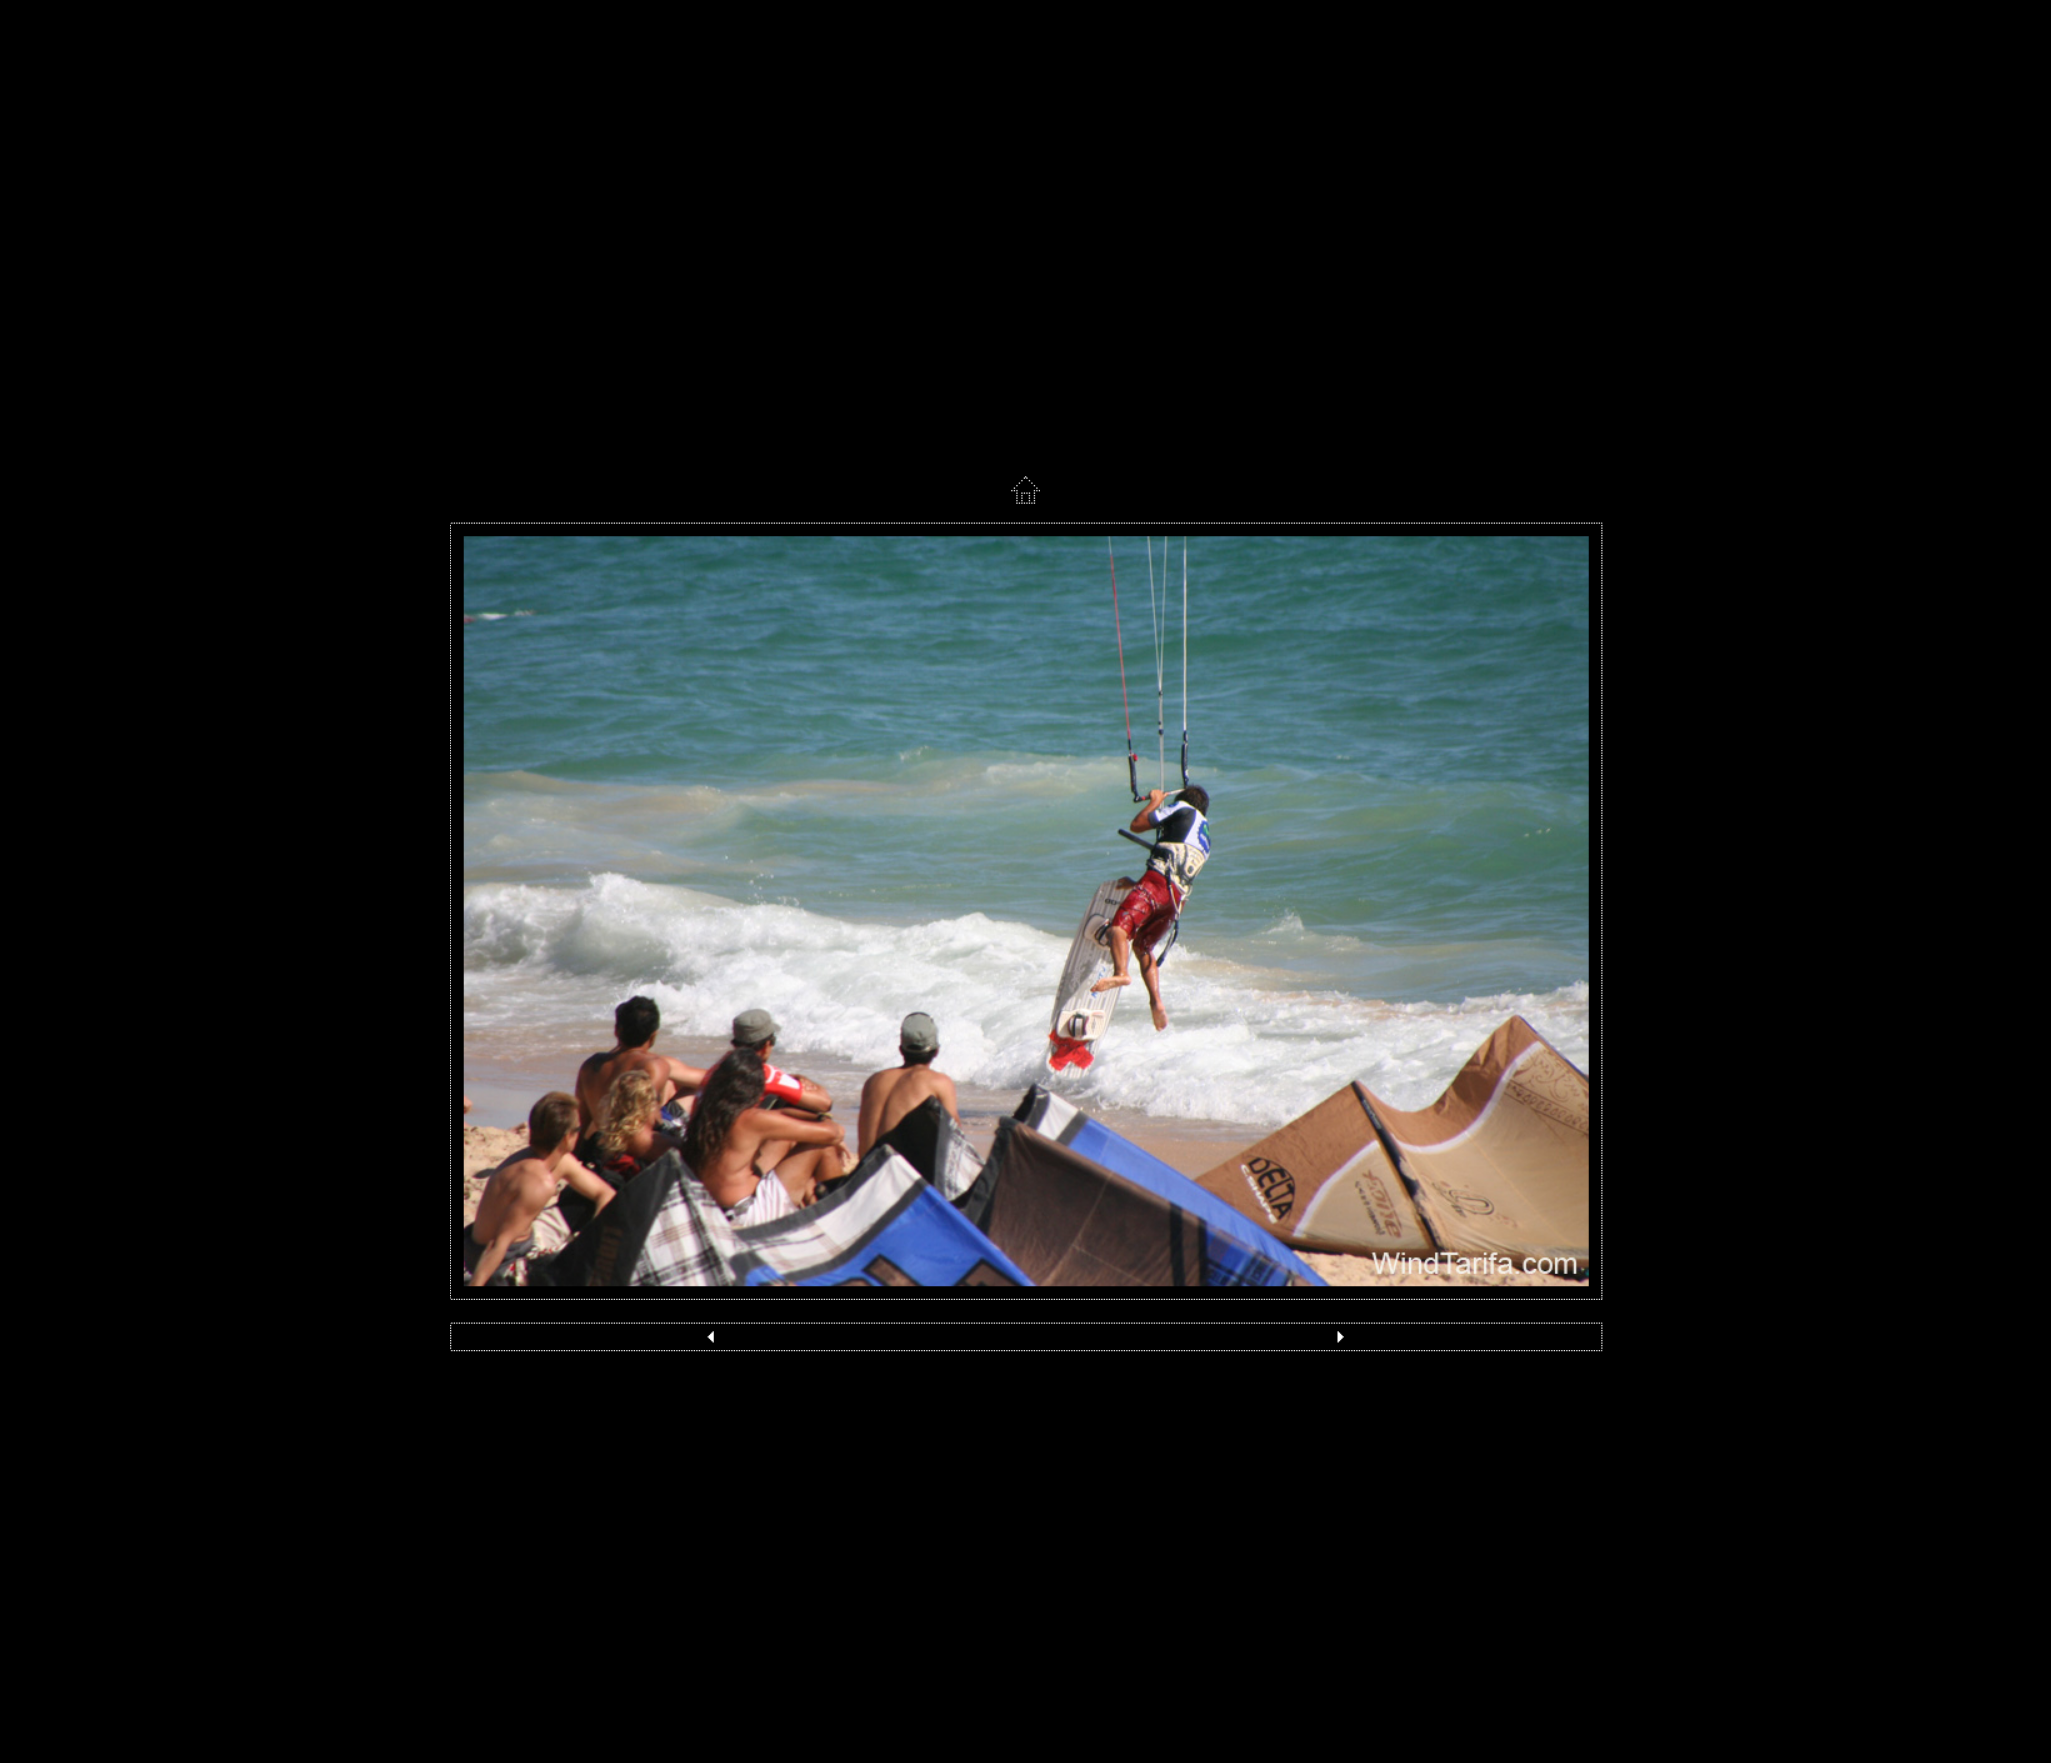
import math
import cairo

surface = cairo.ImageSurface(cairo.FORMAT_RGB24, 2051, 1763)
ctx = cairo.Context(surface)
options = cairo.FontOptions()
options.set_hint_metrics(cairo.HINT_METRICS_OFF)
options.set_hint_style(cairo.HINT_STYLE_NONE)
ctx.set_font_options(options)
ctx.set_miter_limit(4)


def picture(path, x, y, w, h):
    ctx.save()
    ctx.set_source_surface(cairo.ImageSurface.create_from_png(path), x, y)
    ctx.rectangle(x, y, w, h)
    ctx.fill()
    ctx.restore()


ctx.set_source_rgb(0, 0, 0)
ctx.paint()
picture("img1.png", 1011, 476, 29, 28)
picture("img2.png", 450, 522, 1153, 2)
picture("img3.png", 450, 523, 2, 776)
picture("img4.png", 1601, 523, 2, 776)
ctx.set_source_rgb(0, 0, 0)
ctx.rectangle(451, 524, 1, 775)
ctx.fill()
picture("img5.png", 463, 536, 1126, 751)
picture("img6.png", 450, 1298, 1153, 2)
picture("img2.png", 450, 1322, 1153, 2)
picture("img7.png", 450, 1323, 2, 27)
picture("img8.png", 707, 1331, 7, 12)
picture("img9.png", 1337, 1331, 7, 12)
picture("img10.png", 1601, 1323, 2, 27)
picture("img11.png", 450, 1350, 1153, 2)
surface.write_to_png("page.png")
